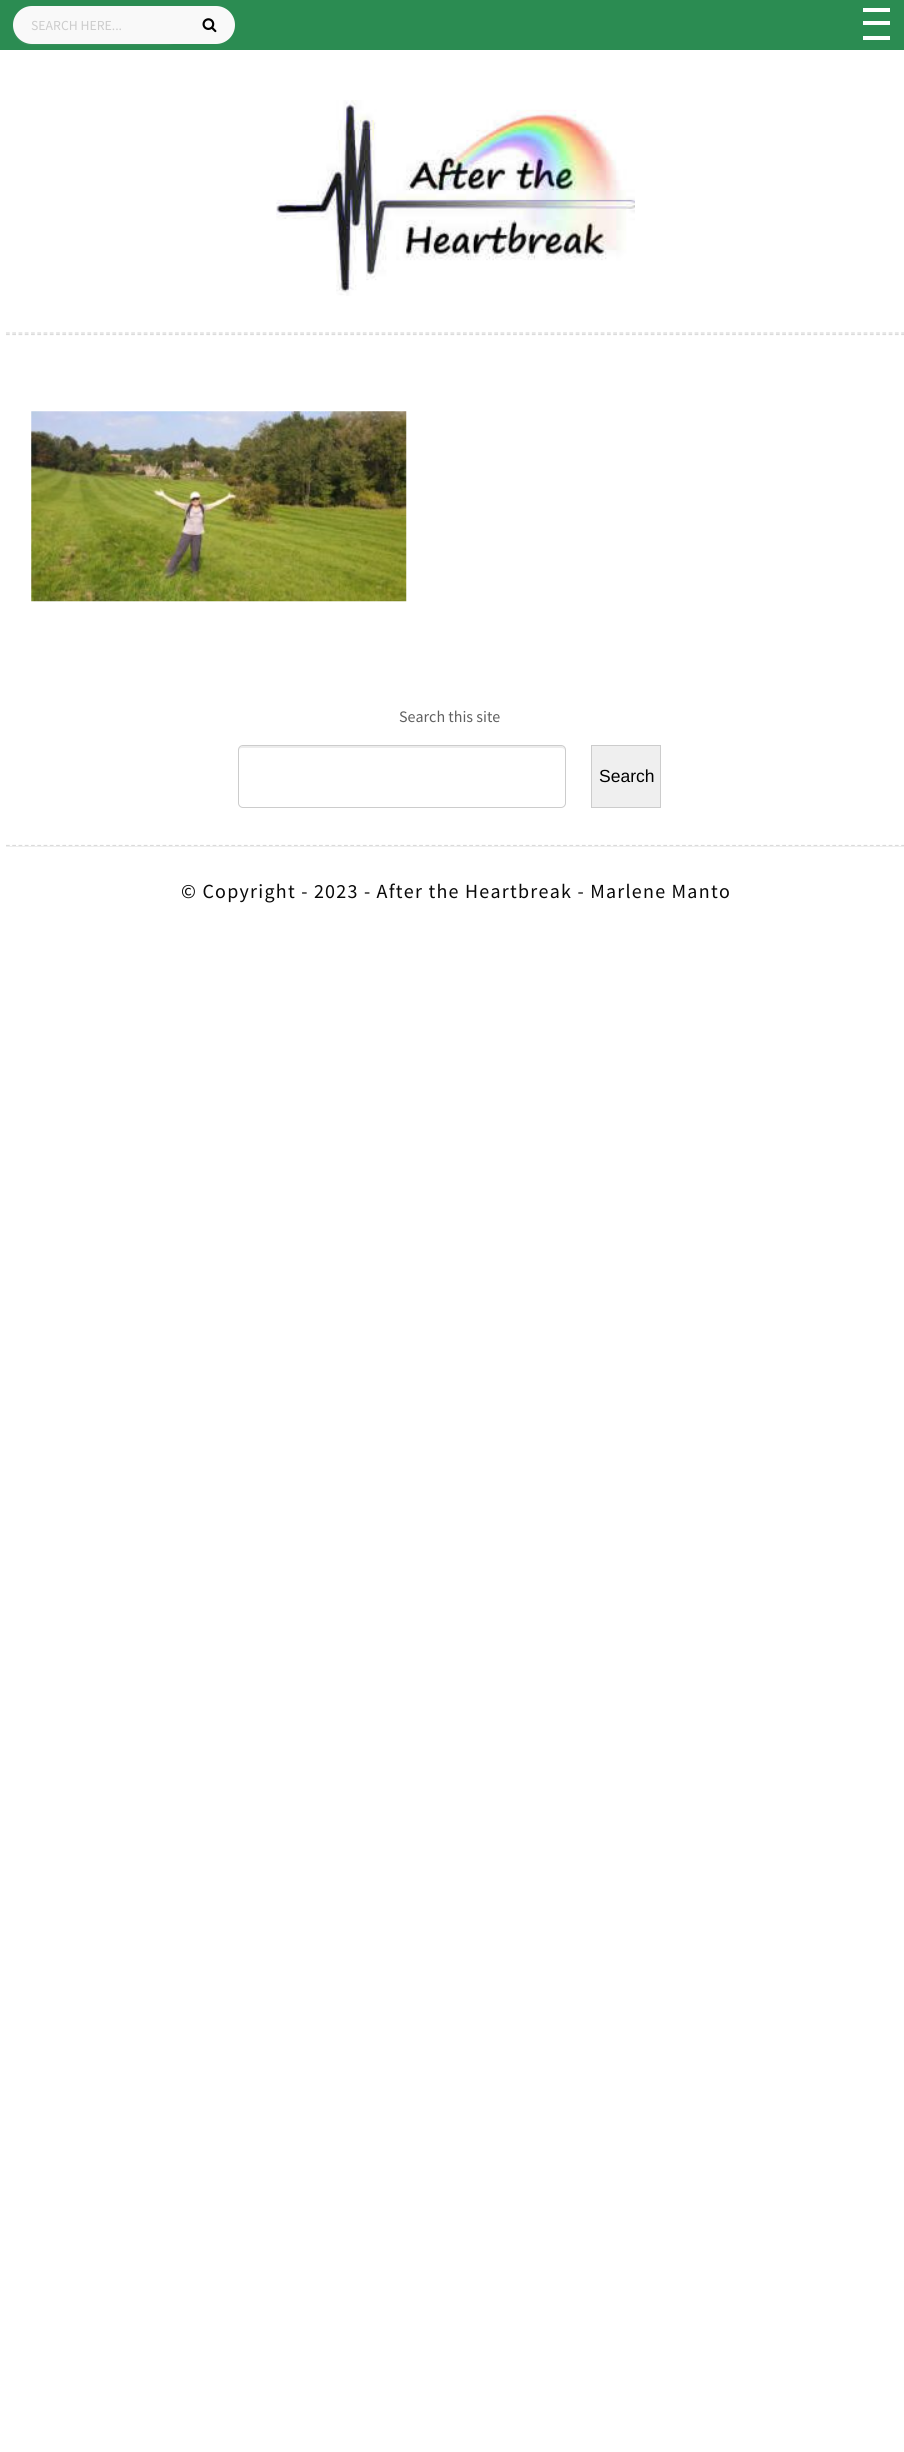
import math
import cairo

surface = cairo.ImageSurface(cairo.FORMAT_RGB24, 904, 2452)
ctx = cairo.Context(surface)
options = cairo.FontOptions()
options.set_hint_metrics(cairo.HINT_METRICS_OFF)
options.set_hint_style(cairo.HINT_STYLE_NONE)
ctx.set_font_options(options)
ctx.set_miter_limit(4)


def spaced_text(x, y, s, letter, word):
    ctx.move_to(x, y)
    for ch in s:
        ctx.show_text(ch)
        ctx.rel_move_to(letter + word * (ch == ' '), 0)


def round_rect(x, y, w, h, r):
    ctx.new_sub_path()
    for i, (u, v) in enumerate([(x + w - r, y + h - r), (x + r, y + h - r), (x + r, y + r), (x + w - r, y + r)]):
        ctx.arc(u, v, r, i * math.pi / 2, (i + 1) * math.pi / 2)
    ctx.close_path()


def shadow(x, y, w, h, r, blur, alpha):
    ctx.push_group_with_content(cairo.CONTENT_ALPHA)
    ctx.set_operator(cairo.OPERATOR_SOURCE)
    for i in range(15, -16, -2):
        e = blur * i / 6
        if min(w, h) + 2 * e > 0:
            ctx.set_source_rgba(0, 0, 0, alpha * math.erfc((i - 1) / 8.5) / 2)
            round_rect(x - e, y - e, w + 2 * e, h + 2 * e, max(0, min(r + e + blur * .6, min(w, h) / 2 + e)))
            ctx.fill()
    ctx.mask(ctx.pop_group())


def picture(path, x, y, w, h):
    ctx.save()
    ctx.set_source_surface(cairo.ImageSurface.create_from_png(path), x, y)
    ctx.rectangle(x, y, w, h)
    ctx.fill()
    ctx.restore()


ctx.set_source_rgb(1, 1, 1)
ctx.paint()
ctx.set_source_rgb(0.169, 0.549, 0.322)
ctx.rectangle(0, 0, 904, 50)
ctx.fill()
ctx.set_source_rgb(0.706, 0.706, 0.706)
shadow(13, 8, 172, 37, 18.5, 0.5, 0.1)
ctx.set_source_rgb(0.976, 0.976, 0.976)
ctx.new_path()
ctx.move_to(32, 6)
ctx.line_to(185, 6)
ctx.line_to(185, 44)
ctx.line_to(32, 44)
ctx.curve_to(21.5, 44, 13, 35.5, 13, 25)
ctx.curve_to(13, 14.5, 21.5, 6, 32, 6)
ctx.close_path()
ctx.fill()
ctx.select_font_face("Source Sans Pro")
ctx.set_font_size(13.75)
ctx.set_source_rgb(0.8, 0.8, 0.8)
ctx.move_to(31, 30)
ctx.show_text("SEARCH HERE...")
ctx.set_source_rgb(0.976, 0.976, 0.976)
ctx.new_path()
ctx.move_to(185, 6)
ctx.line_to(216, 6)
ctx.curve_to(226.5, 6, 235, 14.5, 235, 25)
ctx.curve_to(235, 35.5, 226.5, 44, 216, 44)
ctx.line_to(185, 44)
ctx.close_path()
ctx.fill()
picture("img1.png", 202, 18, 15, 15)
ctx.set_source_rgb(1, 1, 1)
ctx.rectangle(863, 8, 27, 4)
ctx.fill()
ctx.rectangle(863, 36, 27, 4)
ctx.fill()
ctx.rectangle(863, 21, 27, 4)
ctx.fill()
picture("img2.png", 276, 100, 359, 196)
ctx.new_path()
ctx.move_to(6, 333)
ctx.line_to(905, 333)
ctx.set_source_rgb(0.859, 0.859, 0.859)
ctx.set_line_width(1.2)
ctx.set_dash([3.75, 2.51])
ctx.stroke()
ctx.new_path()
ctx.move_to(6, 334.5)
ctx.line_to(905, 334.5)
ctx.stroke()
picture("img3.png", 31, 411, 376, 191)
ctx.set_font_size(16)
ctx.set_source_rgb(0.376, 0.376, 0.376)
ctx.move_to(399, 722)
ctx.show_text("Search this site")
ctx.set_source_rgb(0.925, 0.925, 0.925)
ctx.new_path()
ctx.move_to(242, 748)
ctx.line_to(561, 748)
ctx.curve_to(563, 748, 565, 749, 565, 751)
ctx.line_to(565, 750)
ctx.curve_to(565, 748, 563, 746, 561, 746)
ctx.line_to(243, 746)
ctx.curve_to(241, 746, 239, 748, 239, 750)
ctx.line_to(239, 751)
ctx.curve_to(239, 749, 240, 748, 242, 748)
ctx.close_path()
ctx.fill()
round_rect(238.5, 745.5, 327, 62, 4.5)
ctx.set_source_rgb(0.8, 0.8, 0.8)
ctx.set_line_width(1)
ctx.set_dash([])
ctx.stroke()
ctx.set_source_rgb(0.937, 0.937, 0.937)
ctx.rectangle(591.5, 745.5, 69, 62)
ctx.fill_preserve()
ctx.set_source_rgb(0.8, 0.8, 0.8)
ctx.stroke()
ctx.select_font_face("Liberation Sans")
ctx.set_font_size(17.5)
ctx.set_source_rgb(0, 0, 0)
ctx.move_to(599, 782)
ctx.show_text("Search")
ctx.new_path()
ctx.move_to(6, 845.5)
ctx.line_to(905, 845.5)
ctx.set_source_rgb(0.859, 0.859, 0.859)
ctx.set_line_width(1.2)
ctx.set_dash([3.75, 2.51])
ctx.stroke()
ctx.set_source_rgb(0.933, 0.933, 0.933)
ctx.rectangle(6, 846, 898, 1)
ctx.fill()
ctx.select_font_face("Source Sans Pro")
ctx.set_font_size(20)
ctx.set_source_rgb(0.039, 0.039, 0.039)
spaced_text(181, 898, "© Copyright - 2023 - After the Heartbreak - Marlene Manto", 1.25, 0)
surface.write_to_png("page.png")
